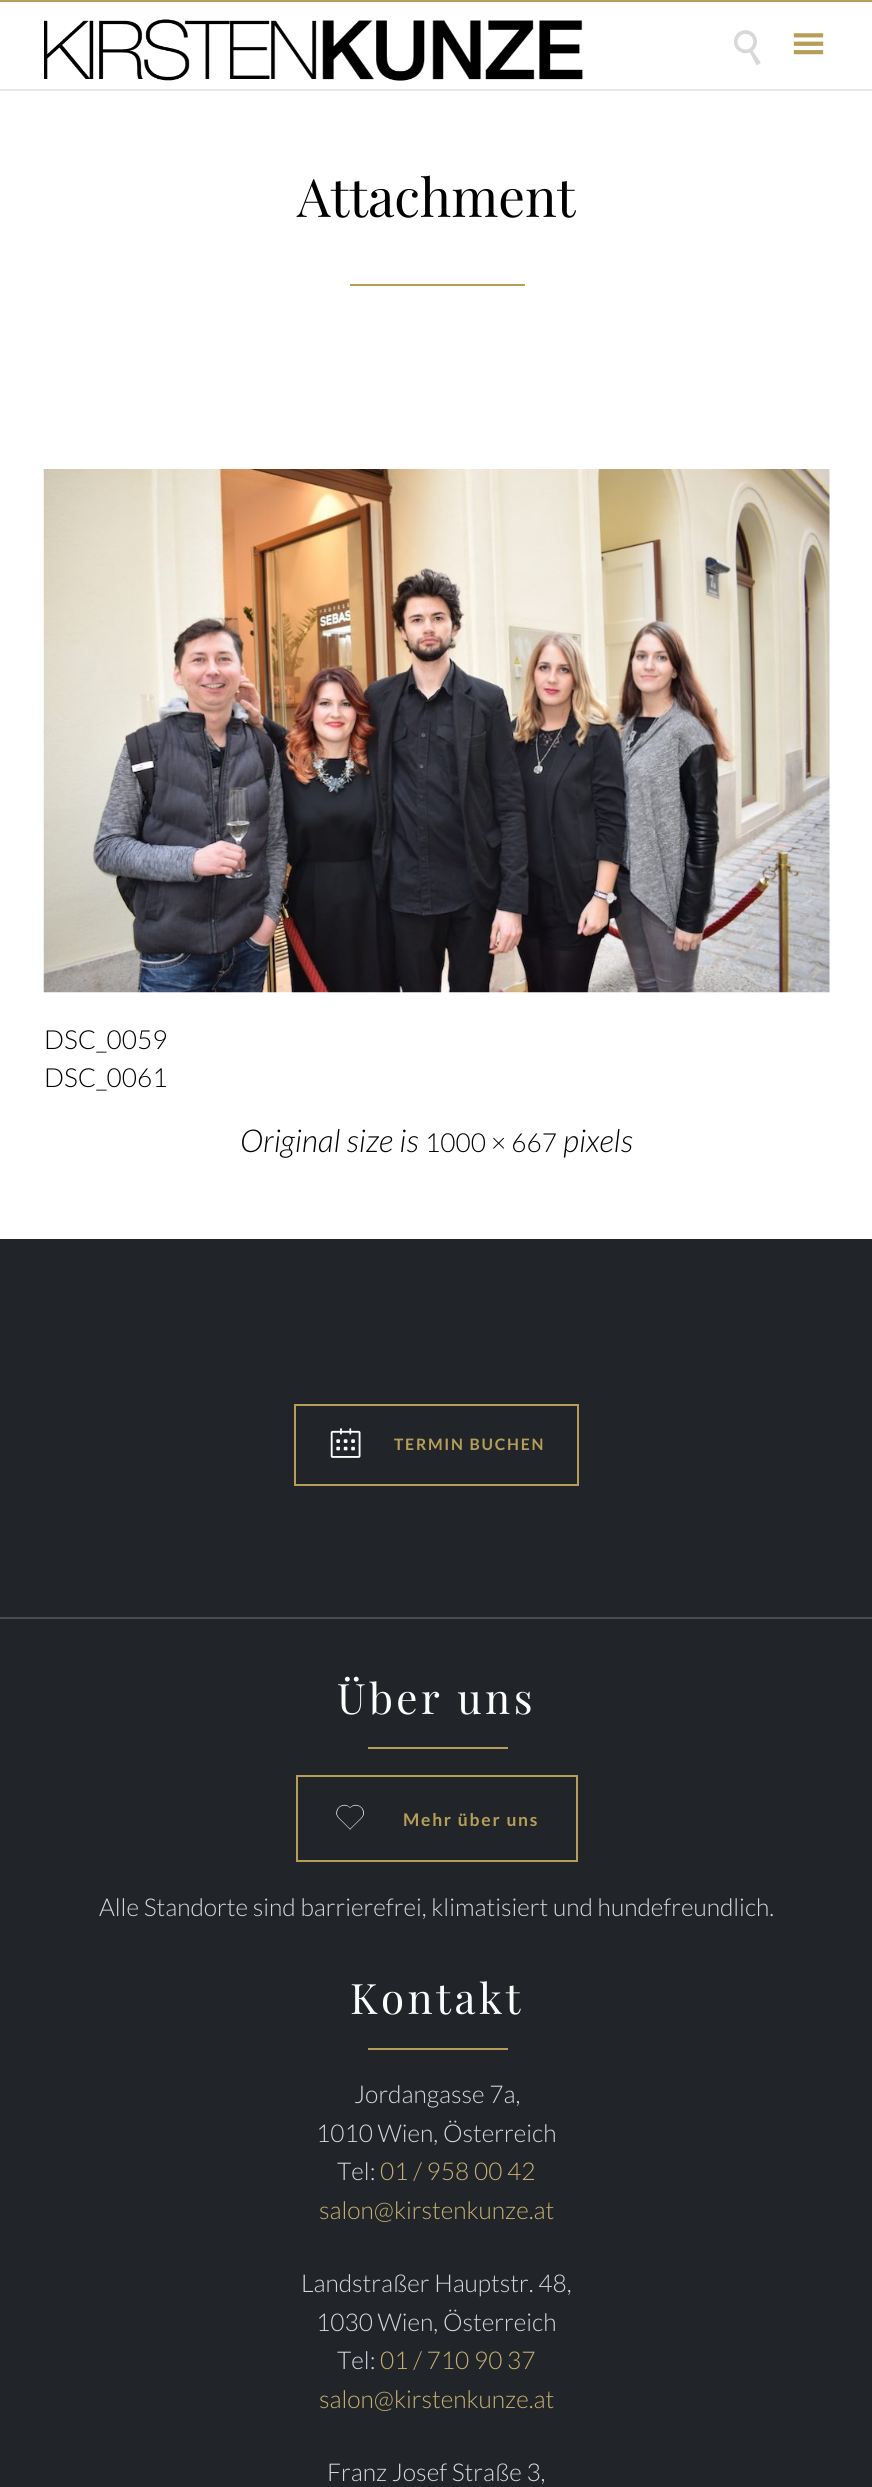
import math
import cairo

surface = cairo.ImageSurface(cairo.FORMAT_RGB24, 872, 2487)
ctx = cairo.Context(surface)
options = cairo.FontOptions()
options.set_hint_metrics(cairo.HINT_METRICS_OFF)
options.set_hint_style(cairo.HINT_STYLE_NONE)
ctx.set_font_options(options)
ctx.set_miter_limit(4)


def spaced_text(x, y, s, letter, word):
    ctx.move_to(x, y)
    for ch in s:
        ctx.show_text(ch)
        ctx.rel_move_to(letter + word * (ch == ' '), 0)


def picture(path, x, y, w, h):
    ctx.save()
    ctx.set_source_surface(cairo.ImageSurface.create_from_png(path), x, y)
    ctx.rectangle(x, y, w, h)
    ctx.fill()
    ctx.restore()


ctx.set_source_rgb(1, 1, 1)
ctx.paint()
ctx.set_source_rgb(0.902, 0.902, 0.902)
ctx.rectangle(0, 89, 872, 2)
ctx.fill()
ctx.set_source_rgb(0.714, 0.62, 0.349)
ctx.rectangle(0, 0, 872, 2)
ctx.fill()
picture("img1.png", 44, 19, 539, 62)
picture("img2.png", 734, 30, 27, 35)
picture("img3.png", 793, 33, 31, 22)
ctx.select_font_face("Playfair Display")
ctx.set_font_size(53)
ctx.set_source_rgb(0, 0, 0)
ctx.move_to(297, 217)
ctx.show_text("Attachment")
ctx.set_source_rgb(0.714, 0.62, 0.349)
ctx.rectangle(350, 284, 175, 2)
ctx.fill()
picture("img4.png", 43, 469, 787, 524)
ctx.select_font_face("Lato Light")
ctx.set_font_size(26.25)
ctx.set_source_rgb(0, 0, 0)
ctx.move_to(44, 1049)
ctx.show_text("DSC_0059")
ctx.move_to(44, 1087)
ctx.show_text("DSC_0061")
ctx.select_font_face("Lato Light", cairo.FONT_SLANT_ITALIC)
ctx.set_font_size(31.5)
ctx.move_to(240, 1152)
ctx.show_text("Original size is")
ctx.select_font_face("Lato Light")
ctx.set_font_size(26.25)
ctx.move_to(425, 1152)
ctx.show_text("1000 × 667")
ctx.select_font_face("Lato Light", cairo.FONT_SLANT_ITALIC)
ctx.set_font_size(31.5)
ctx.move_to(563, 1152)
ctx.show_text("pixels")
ctx.set_source_rgb(0.129, 0.145, 0.161)
ctx.rectangle(0, 1239, 872, 1248)
ctx.fill()
ctx.set_source_rgb(0.29, 0.302, 0.314)
ctx.rectangle(0, 1617, 872, 2)
ctx.fill()
ctx.rectangle(295, 1405, 283, 80)
ctx.set_source_rgb(0.714, 0.62, 0.349)
ctx.stroke()
picture("img5.png", 330, 1428, 31, 30)
ctx.select_font_face("Lato", cairo.FONT_SLANT_NORMAL, cairo.FONT_WEIGHT_BOLD)
ctx.set_font_size(15.75)
spaced_text(394, 1450, "TERMIN BUCHEN", 1.75, 0)
ctx.select_font_face("Playfair Display")
ctx.set_font_size(42)
ctx.set_source_rgb(1, 1, 1)
spaced_text(337, 1714, "Über uns", 3.5, 0)
ctx.set_source_rgb(0.714, 0.62, 0.349)
ctx.rectangle(368, 1747, 140, 2)
ctx.fill()
ctx.rectangle(297, 1776, 280, 85)
ctx.stroke()
picture("img6.png", 336, 1804, 28, 26)
ctx.select_font_face("Lato", cairo.FONT_SLANT_NORMAL, cairo.FONT_WEIGHT_BOLD)
ctx.set_font_size(17.5)
spaced_text(403, 1826, "Mehr über uns", 1.75, 0)
ctx.select_font_face("Lato Light")
ctx.set_font_size(24.5)
ctx.set_source_rgb(0.847, 0.847, 0.847)
ctx.move_to(99, 1916)
ctx.show_text("Alle Standorte sind barrierefrei, klimatisiert und hundefreundlich.")
ctx.select_font_face("Playfair Display")
ctx.set_font_size(42)
ctx.set_source_rgb(1, 1, 1)
spaced_text(350, 2014, "Kontakt", 3.5, 0)
ctx.set_source_rgb(0.714, 0.62, 0.349)
ctx.rectangle(368, 2048, 140, 2)
ctx.fill()
ctx.select_font_face("Lato Light")
ctx.set_font_size(24.5)
ctx.set_source_rgb(0.847, 0.847, 0.847)
ctx.move_to(354, 2103)
ctx.show_text("Jordangasse 7a,")
ctx.move_to(316, 2142)
ctx.show_text("1010 Wien, Österreich")
ctx.move_to(337, 2180)
ctx.show_text("Tel:")
ctx.set_source_rgb(0.784, 0.694, 0.439)
ctx.move_to(380, 2180)
ctx.show_text("01 / 958 00 42")
ctx.move_to(319, 2219)
ctx.show_text("salon@kirstenkunze.at")
ctx.set_source_rgb(0.847, 0.847, 0.847)
ctx.move_to(301, 2292)
ctx.show_text("Landstraßer Hauptstr. 48,")
ctx.move_to(316, 2331)
ctx.show_text("1030 Wien, Österreich")
ctx.move_to(337, 2369)
ctx.show_text("Tel:")
ctx.set_source_rgb(0.784, 0.694, 0.439)
ctx.move_to(380, 2369)
ctx.show_text("01 / 710 90 37")
ctx.move_to(319, 2408)
ctx.show_text("salon@kirstenkunze.at")
ctx.set_source_rgb(0.847, 0.847, 0.847)
ctx.move_to(327, 2481)
ctx.show_text("Franz Josef Straße 3,")
surface.write_to_png("page.png")
